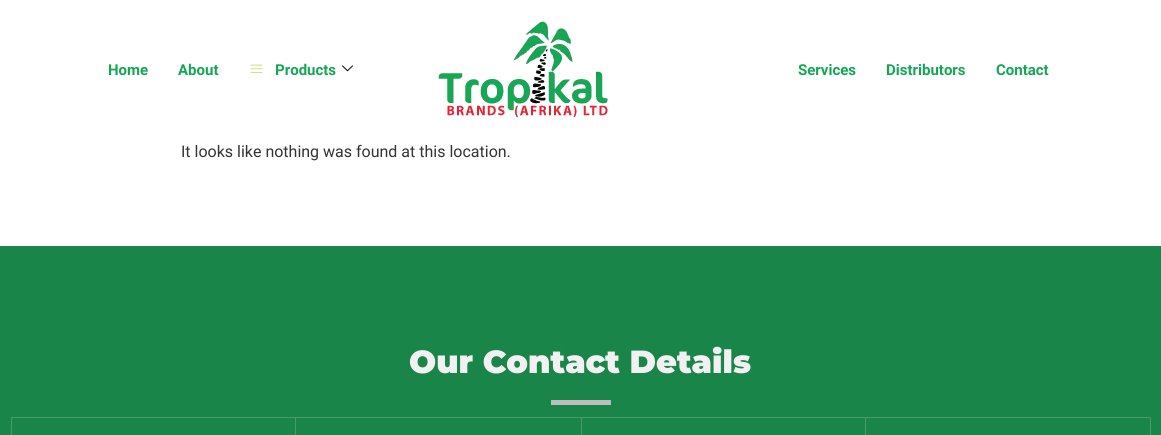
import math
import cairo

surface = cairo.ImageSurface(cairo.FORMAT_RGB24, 1161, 435)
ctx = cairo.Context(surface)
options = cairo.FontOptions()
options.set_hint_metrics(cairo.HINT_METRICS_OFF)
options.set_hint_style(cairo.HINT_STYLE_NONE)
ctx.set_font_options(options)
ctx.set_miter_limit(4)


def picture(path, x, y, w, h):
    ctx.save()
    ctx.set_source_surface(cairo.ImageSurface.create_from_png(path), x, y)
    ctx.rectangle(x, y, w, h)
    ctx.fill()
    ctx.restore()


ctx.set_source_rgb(1, 1, 1)
ctx.paint()
ctx.select_font_face("Roboto", cairo.FONT_SLANT_NORMAL, cairo.FONT_WEIGHT_BOLD)
ctx.set_font_size(15)
ctx.set_source_rgb(0.075, 0.655, 0.329)
ctx.move_to(108, 75)
ctx.show_text("Home")
ctx.move_to(178, 75)
ctx.show_text("About")
picture("img1.png", 250, 64, 13, 9)
ctx.move_to(275, 75)
ctx.show_text("Products")
picture("img2.png", 342, 65, 11, 7)
picture("img3.png", 438, 21, 170, 96)
ctx.move_to(798, 75)
ctx.show_text("Services")
ctx.move_to(886, 75)
ctx.show_text("Distributors")
ctx.move_to(996, 75)
ctx.show_text("Contact")
ctx.select_font_face("Roboto")
ctx.set_font_size(16)
ctx.set_source_rgb(0.2, 0.2, 0.2)
ctx.move_to(181, 157)
ctx.show_text("It looks like nothing was found at this location.")
ctx.set_source_rgb(0.098, 0.522, 0.282)
ctx.rectangle(0, 246, 1161, 189)
ctx.fill()
ctx.select_font_face("Montserrat Black")
ctx.set_font_size(32)
ctx.set_source_rgb(0.945, 0.945, 0.945)
ctx.move_to(409, 373)
ctx.show_text("Our Contact Details")
ctx.set_source_rgb(0.741, 0.741, 0.741)
ctx.rectangle(551, 400, 60, 5)
ctx.fill()
ctx.rectangle(11.5, 417.5, 284, 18)
ctx.set_source_rgb(0.302, 0.592, 0.427)
ctx.set_line_width(1)
ctx.stroke()
ctx.rectangle(296, 417, 285, 1)
ctx.fill()
ctx.rectangle(581.5, 417.5, 284, 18)
ctx.stroke()
ctx.new_path()
ctx.move_to(866, 417)
ctx.line_to(1151, 417)
ctx.line_to(1150, 418)
ctx.line_to(866, 418)
ctx.close_path()
ctx.fill()
ctx.set_source_rgba(0.741, 0.741, 0.741, 0.32)
ctx.new_path()
ctx.move_to(1151, 417)
ctx.line_to(1151, 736)
ctx.line_to(1150, 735)
ctx.line_to(1150, 418)
ctx.close_path()
ctx.fill()
surface.write_to_png("page.png")
